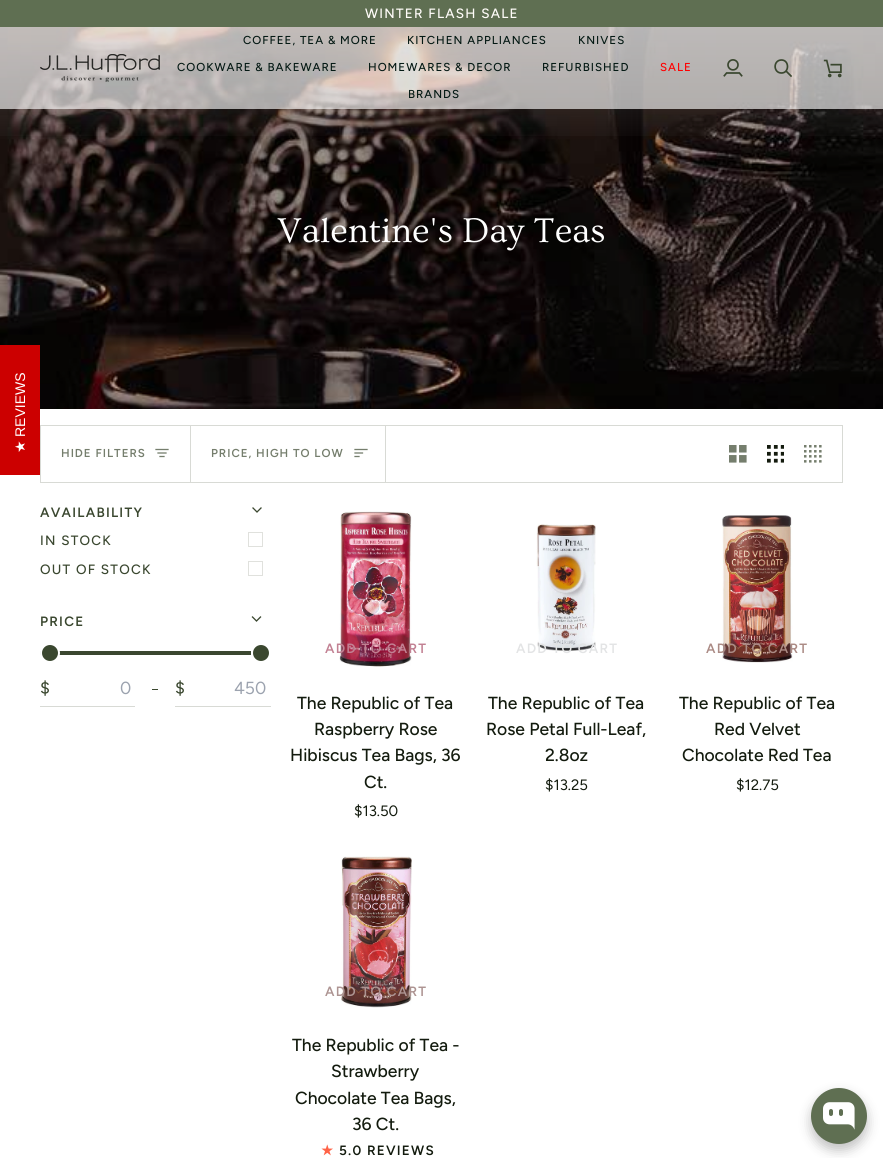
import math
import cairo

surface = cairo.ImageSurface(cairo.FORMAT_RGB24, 883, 1158)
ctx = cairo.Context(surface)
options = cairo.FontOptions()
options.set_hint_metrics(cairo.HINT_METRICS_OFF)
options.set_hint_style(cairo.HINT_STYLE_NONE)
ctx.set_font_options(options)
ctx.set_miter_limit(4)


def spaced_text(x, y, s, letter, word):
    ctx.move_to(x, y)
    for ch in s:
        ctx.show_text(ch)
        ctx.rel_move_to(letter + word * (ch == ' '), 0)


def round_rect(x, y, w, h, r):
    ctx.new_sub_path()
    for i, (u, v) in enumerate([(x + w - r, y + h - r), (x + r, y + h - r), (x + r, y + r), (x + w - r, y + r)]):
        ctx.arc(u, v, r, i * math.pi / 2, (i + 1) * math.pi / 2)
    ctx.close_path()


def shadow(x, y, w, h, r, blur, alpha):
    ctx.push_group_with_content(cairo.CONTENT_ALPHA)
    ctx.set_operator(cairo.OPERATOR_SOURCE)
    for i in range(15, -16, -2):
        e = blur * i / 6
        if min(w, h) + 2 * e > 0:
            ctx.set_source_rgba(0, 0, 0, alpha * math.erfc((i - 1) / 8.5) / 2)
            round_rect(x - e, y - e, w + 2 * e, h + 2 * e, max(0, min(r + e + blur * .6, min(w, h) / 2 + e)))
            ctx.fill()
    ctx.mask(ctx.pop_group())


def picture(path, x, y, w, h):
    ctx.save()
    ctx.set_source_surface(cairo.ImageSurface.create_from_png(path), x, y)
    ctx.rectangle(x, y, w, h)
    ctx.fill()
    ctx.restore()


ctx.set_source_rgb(1, 1, 1)
ctx.paint()
ctx.set_source_rgb(0.373, 0.435, 0.322)
ctx.rectangle(0, 0, 883, 27)
ctx.fill()
ctx.select_font_face("Figtree Medium")
ctx.set_font_size(13.5)
ctx.set_source_rgb(1, 0.988, 0.976)
spaced_text(365, 18, "WINTER FLASH SALE", 1.25, 0)
picture("img4.png", 0, 27, 883, 382)
ctx.set_source_rgba(1, 1, 1, 0.63)
ctx.rectangle(0, 27, 883, 82)
ctx.fill()
gradient = cairo.LinearGradient(442, 27, 442, 149)
gradient.add_color_stop_rgba(0, 1, 1, 1, 0.2)
gradient.add_color_stop_rgba(1, 1, 1, 1, 0)
ctx.set_source(gradient)
ctx.rectangle(0, 27, 883, 109)
ctx.fill()
picture("img1.png", 40, 54, 120, 28)
ctx.set_font_size(11.5)
ctx.set_source_rgb(0.016, 0.098, 0.082)
spaced_text(243, 44, "COFFEE, TEA & MORE", 1, 0)
spaced_text(407, 44, "KITCHEN APPLIANCES", 1, 0)
spaced_text(578, 44, "KNIVES", 1, 0)
spaced_text(177, 71, "COOKWARE & BAKEWARE", 1, 0)
spaced_text(368, 71, "HOMEWARES & DECOR", 1, 0)
spaced_text(542, 71, "REFURBISHED", 1, 0)
ctx.set_source_rgb(1, 0, 0)
spaced_text(660, 71, "SALE", 1, 0)
ctx.set_source_rgb(0.016, 0.098, 0.082)
spaced_text(408, 98, "BRANDS", 1, 0)
picture("img2.png", 723, 59, 20, 18)
ctx.new_path()
ctx.move_to(781.5, 73)
ctx.curve_to(789.5, 73, 789.5, 60, 781.5, 60)
ctx.curve_to(773, 60, 773, 73, 781.5, 73)
ctx.close_path()
ctx.move_to(791, 76)
ctx.line_to(786, 71)
ctx.set_source_rgb(0.227, 0.278, 0.184)
ctx.set_line_width(1.7)
ctx.set_line_cap(cairo.LINE_CAP_SQUARE)
ctx.stroke()
picture("img3.png", 823, 59, 19, 19)
ctx.set_source_rgb(0.8, 0, 0)
ctx.rectangle(0, 345, 40, 130)
ctx.fill()
ctx.select_font_face("Liberation Sans")
ctx.set_font_size(14)
ctx.set_source_rgb(1, 1, 1)
ctx.save()
ctx.translate(25, 437)
ctx.rotate(-90 * math.pi / 180)
ctx.move_to(0, 0)
ctx.show_text("REVIEWS")
ctx.restore()
ctx.select_font_face("DejaVu Sans")
ctx.save()
ctx.translate(25, 453)
ctx.rotate(-90 * math.pi / 180)
ctx.move_to(0, 0)
ctx.show_text("★")
ctx.restore()
ctx.select_font_face("Ovo")
ctx.set_font_size(36)
ctx.move_to(277, 242)
ctx.show_text("Valentine's Day Teas")
ctx.rectangle(40.5, 425.5, 802, 57)
ctx.set_source_rgb(0.847, 0.855, 0.835)
ctx.set_line_width(1)
ctx.set_line_cap(cairo.LINE_CAP_BUTT)
ctx.stroke()
ctx.rectangle(190, 426, 1, 56)
ctx.fill()
ctx.select_font_face("Figtree SemiBold")
ctx.set_font_size(11.5)
ctx.set_source_rgb(0.459, 0.494, 0.427)
spaced_text(61, 457, "HIDE FILTERS", 1, 0)
ctx.new_path()
ctx.move_to(168, 449.5)
ctx.line_to(156, 449.5)
ctx.move_to(166, 453)
ctx.line_to(158, 453)
ctx.move_to(164, 456.5)
ctx.line_to(160, 456.5)
ctx.set_line_width(1.3)
ctx.set_line_cap(cairo.LINE_CAP_SQUARE)
ctx.stroke()
ctx.set_source_rgb(0.847, 0.855, 0.835)
ctx.rectangle(385, 426, 1, 56)
ctx.fill()
ctx.set_source_rgb(0.459, 0.494, 0.427)
spaced_text(211, 457, "PRICE, HIGH TO LOW", 1, 0)
ctx.new_path()
ctx.move_to(367, 449.5)
ctx.line_to(355, 449.5)
ctx.move_to(362.5, 453)
ctx.line_to(355, 453)
ctx.move_to(359, 456.5)
ctx.line_to(355, 456.5)
ctx.stroke()
picture("img5.png", 729, 445, 18, 18)
picture("img6.png", 767, 445, 17, 18)
picture("img7.png", 804, 445, 18, 18)
ctx.set_font_size(13.5)
ctx.set_source_rgb(0.227, 0.278, 0.184)
spaced_text(40, 517, "AVAILABILITY", 1.25, 0)
ctx.new_path()
ctx.move_to(253, 508)
ctx.line_to(257, 512)
ctx.line_to(261, 508)
ctx.stroke()
ctx.select_font_face("Figtree Medium")
spaced_text(40, 545, "IN STOCK", 1.25, 0)
ctx.new_path()
ctx.move_to(248.5, 532.5)
ctx.line_to(262.5, 532.5)
ctx.line_to(262.5, 546.5)
ctx.line_to(248.5, 546.5)
ctx.close_path()
ctx.set_source_rgb(0.847, 0.855, 0.835)
ctx.set_line_width(0.8)
ctx.set_line_cap(cairo.LINE_CAP_BUTT)
ctx.stroke()
ctx.set_source_rgb(0.227, 0.278, 0.184)
spaced_text(40, 574, "OUT OF STOCK", 1.25, 0)
ctx.new_path()
ctx.move_to(248.5, 561.5)
ctx.line_to(262.5, 561.5)
ctx.line_to(262.5, 575.5)
ctx.line_to(248.5, 575.5)
ctx.close_path()
ctx.set_source_rgb(0.847, 0.855, 0.835)
ctx.stroke()
ctx.select_font_face("Figtree SemiBold")
ctx.set_source_rgb(0.227, 0.278, 0.184)
spaced_text(40, 626, "PRICE", 1.25, 0)
ctx.new_path()
ctx.move_to(252.5, 617)
ctx.line_to(256.5, 621)
ctx.line_to(260.5, 617)
ctx.set_line_width(1.3)
ctx.set_line_cap(cairo.LINE_CAP_SQUARE)
ctx.stroke()
ctx.new_path()
ctx.move_to(42, 651)
ctx.line_to(251, 651)
ctx.line_to(251, 655)
ctx.line_to(42, 655)
ctx.curve_to(41, 655, 40, 654, 40, 653)
ctx.curve_to(40, 652, 41, 651, 42, 651)
ctx.close_path()
ctx.fill()
ctx.arc(50, 653, 9, 0, 2 * math.pi)
ctx.fill_preserve()
ctx.set_source_rgb(1, 1, 1)
ctx.set_line_width(2)
ctx.set_line_cap(cairo.LINE_CAP_BUTT)
ctx.stroke()
ctx.set_source_rgb(0.227, 0.278, 0.184)
ctx.arc(261, 653, 9, 0, 2 * math.pi)
ctx.fill_preserve()
ctx.set_source_rgb(1, 1, 1)
ctx.stroke()
ctx.set_source_rgb(0.847, 0.855, 0.835)
ctx.rectangle(40, 706, 95, 1)
ctx.fill()
ctx.select_font_face("Figtree")
ctx.set_font_size(17.5)
ctx.set_source_rgb(0.227, 0.278, 0.184)
ctx.move_to(40, 694)
ctx.show_text("$")
ctx.set_source_rgb(0.612, 0.639, 0.686)
ctx.move_to(120, 694)
ctx.show_text("0")
ctx.set_source_rgb(0.227, 0.278, 0.184)
ctx.rectangle(152, 689, 6, 1)
ctx.fill()
ctx.set_source_rgb(0.847, 0.855, 0.835)
ctx.rectangle(175, 706, 96, 1)
ctx.fill()
ctx.set_source_rgb(0.227, 0.278, 0.184)
ctx.move_to(175, 694)
ctx.show_text("$")
ctx.set_source_rgb(0.612, 0.639, 0.686)
ctx.move_to(234, 694)
ctx.show_text("450")
picture("img8.png", 339, 511, 73, 156)
ctx.select_font_face("Figtree SemiBold")
ctx.set_font_size(13.5)
ctx.set_source_rgb(0.761, 0.506, 0.576)
spaced_text(325, 653, "ADD TO CART", 1.25, 0)
ctx.select_font_face("Figtree Medium")
ctx.set_font_size(17.5)
ctx.set_source_rgb(0.078, 0.106, 0.055)
ctx.move_to(297, 709)
ctx.show_text("The Republic of Tea")
ctx.move_to(314, 735)
ctx.show_text("Raspberry Rose")
ctx.move_to(290, 761)
ctx.show_text("Hibiscus Tea Bags, 36")
ctx.move_to(364, 788)
ctx.show_text("Ct.")
ctx.select_font_face("Figtree")
ctx.set_font_size(15)
ctx.move_to(354, 816)
ctx.show_text("$13.50")
picture("img9.png", 536, 524, 60, 127)
ctx.select_font_face("Figtree SemiBold")
ctx.set_font_size(13.5)
ctx.set_source_rgb(0.89, 0.894, 0.898)
spaced_text(516, 653, "ADD TO CART", 1.25, 0)
ctx.select_font_face("Figtree Medium")
ctx.set_font_size(17.5)
ctx.set_source_rgb(0.078, 0.106, 0.055)
ctx.move_to(488, 709)
ctx.show_text("The Republic of Tea")
ctx.move_to(486, 735)
ctx.show_text("Rose Petal Full-Leaf,")
ctx.move_to(545, 761)
ctx.show_text("2.8oz")
ctx.select_font_face("Figtree")
ctx.set_font_size(15)
ctx.move_to(545, 790)
ctx.show_text("$13.25")
picture("img10.png", 722, 515, 71, 148)
ctx.select_font_face("Figtree SemiBold")
ctx.set_font_size(13.5)
ctx.set_source_rgb(0.671, 0.545, 0.522)
spaced_text(706, 653, "ADD TO CART", 1.25, 0)
ctx.select_font_face("Figtree Medium")
ctx.set_font_size(17.5)
ctx.set_source_rgb(0.078, 0.106, 0.055)
ctx.move_to(679, 709)
ctx.show_text("The Republic of Tea")
ctx.move_to(714, 735)
ctx.show_text("Red Velvet")
ctx.move_to(682, 761)
ctx.show_text("Chocolate Red Tea")
ctx.select_font_face("Figtree")
ctx.set_font_size(15)
ctx.move_to(736, 790)
ctx.show_text("$12.75")
picture("img11.png", 341, 856, 71, 152)
ctx.select_font_face("Figtree SemiBold")
ctx.set_font_size(13.5)
ctx.set_source_rgb(0.678, 0.58, 0.573)
spaced_text(325, 996, "ADD TO CART", 1.25, 0)
ctx.select_font_face("Figtree Medium")
ctx.set_font_size(17.5)
ctx.set_source_rgb(0.078, 0.106, 0.055)
ctx.move_to(292, 1051)
ctx.show_text("The Republic of Tea -")
ctx.move_to(331, 1077)
ctx.show_text("Strawberry")
ctx.move_to(295, 1104)
ctx.show_text("Chocolate Tea Bags,")
ctx.move_to(352, 1130)
ctx.show_text("36 Ct.")
ctx.select_font_face("DejaVu Sans", cairo.FONT_SLANT_NORMAL, cairo.FONT_WEIGHT_BOLD)
ctx.set_font_size(13.5)
ctx.set_source_rgb(1, 0.388, 0.278)
spaced_text(321, 1155, "★", 1.25, 0)
ctx.select_font_face("Figtree SemiBold")
ctx.set_source_rgb(0.078, 0.106, 0.055)
spaced_text(339, 1155, "5.0 REVIEWS", 1.25, 0)
ctx.set_source_rgb(0, 0, 0)
shadow(811, 1094, 56, 56, 28, 6, 0.25)
ctx.set_source_rgb(0.373, 0.435, 0.322)
ctx.arc(839, 1116, 28, 0, 2 * math.pi)
ctx.fill()
picture("img12.png", 823, 1102, 32, 28)
surface.write_to_png("page.png")
